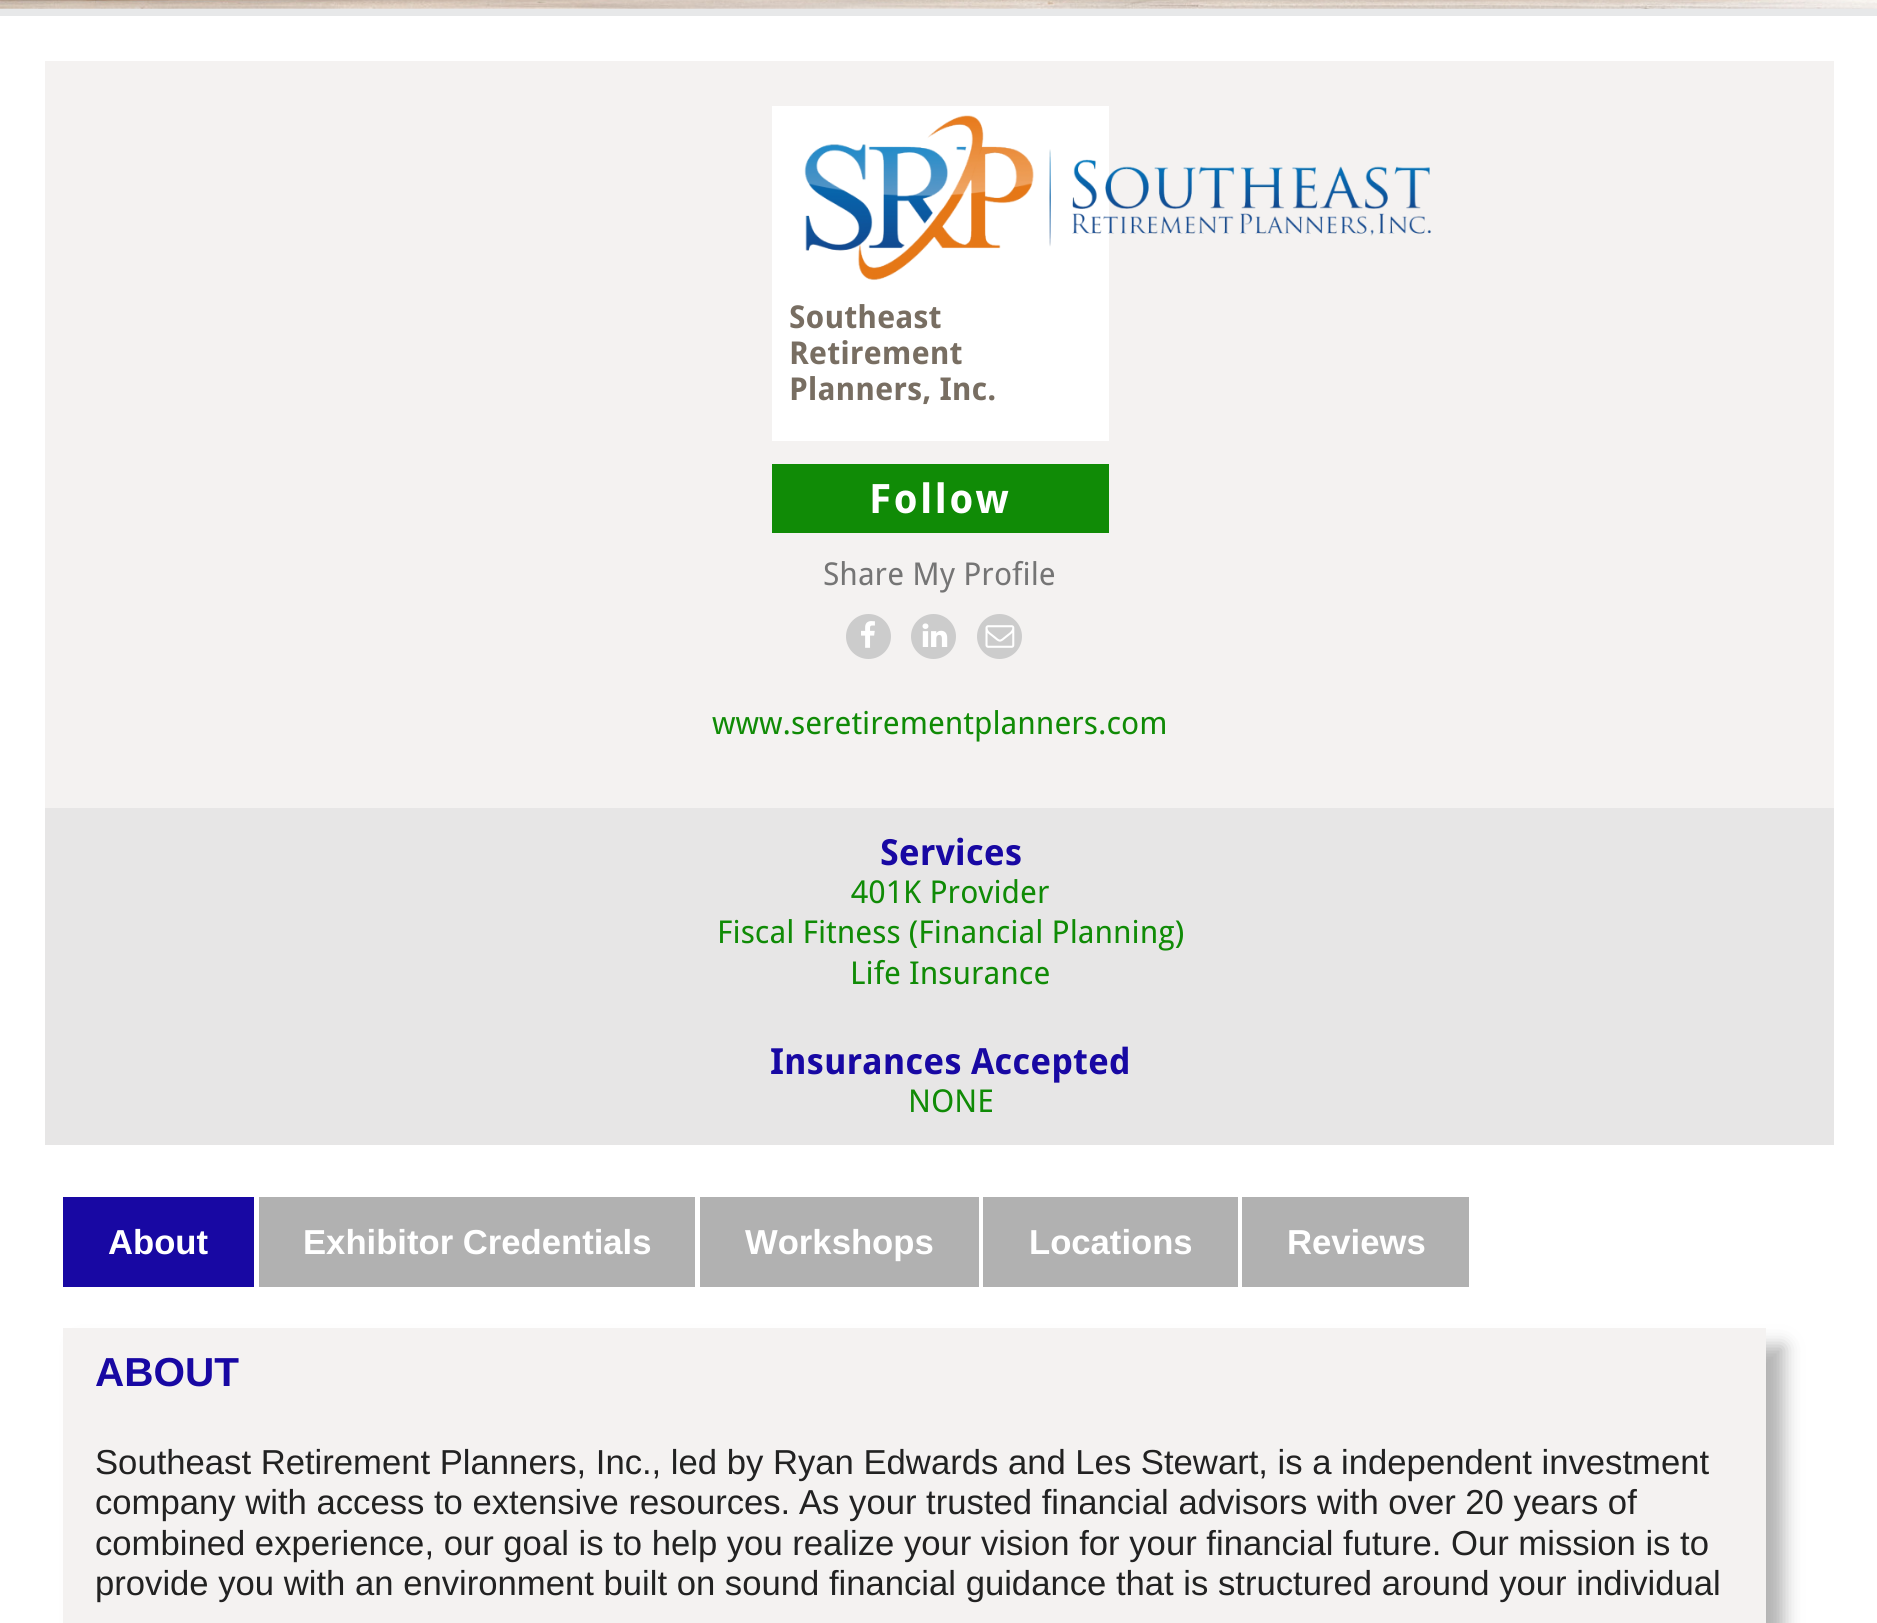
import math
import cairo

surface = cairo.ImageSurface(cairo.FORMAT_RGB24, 1877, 1623)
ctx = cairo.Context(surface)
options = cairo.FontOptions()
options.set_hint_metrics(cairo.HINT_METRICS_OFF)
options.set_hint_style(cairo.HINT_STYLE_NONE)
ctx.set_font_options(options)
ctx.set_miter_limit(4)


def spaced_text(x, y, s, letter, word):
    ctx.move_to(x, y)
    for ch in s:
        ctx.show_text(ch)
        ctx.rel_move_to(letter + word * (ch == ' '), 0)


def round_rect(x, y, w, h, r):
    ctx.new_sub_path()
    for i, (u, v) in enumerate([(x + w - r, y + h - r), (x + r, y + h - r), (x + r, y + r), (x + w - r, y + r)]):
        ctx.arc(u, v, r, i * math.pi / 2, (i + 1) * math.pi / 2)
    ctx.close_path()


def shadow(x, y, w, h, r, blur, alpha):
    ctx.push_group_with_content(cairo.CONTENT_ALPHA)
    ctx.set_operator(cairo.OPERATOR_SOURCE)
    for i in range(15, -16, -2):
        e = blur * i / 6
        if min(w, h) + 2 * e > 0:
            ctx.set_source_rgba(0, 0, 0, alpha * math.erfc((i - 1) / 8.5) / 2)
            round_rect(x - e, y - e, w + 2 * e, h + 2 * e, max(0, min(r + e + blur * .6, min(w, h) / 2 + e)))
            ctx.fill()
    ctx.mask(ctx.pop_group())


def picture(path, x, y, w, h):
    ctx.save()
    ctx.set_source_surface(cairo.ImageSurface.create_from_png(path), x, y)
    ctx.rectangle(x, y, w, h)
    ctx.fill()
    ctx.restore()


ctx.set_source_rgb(0.906, 0.91, 0.914)
ctx.paint()
picture("img1.png", 0, 0, 1877, 9)
ctx.set_source_rgb(1, 1, 1)
ctx.rectangle(0, 16, 1877, 1607)
ctx.fill()
ctx.set_source_rgb(0.957, 0.949, 0.945)
ctx.rectangle(45, 61, 1789, 747)
ctx.fill()
ctx.set_source_rgb(1, 1, 1)
ctx.rectangle(772, 106, 337, 335)
ctx.fill()
picture("img2.png", 804, 115, 628, 166)
ctx.select_font_face("Droid Sans", cairo.FONT_SLANT_NORMAL, cairo.FONT_WEIGHT_BOLD)
ctx.set_font_size(31.5)
ctx.set_source_rgb(0.471, 0.431, 0.384)
ctx.move_to(789, 328)
ctx.show_text("Southeast")
ctx.move_to(789, 364)
ctx.show_text("Retirement")
ctx.move_to(789, 400)
ctx.show_text("Planners, Inc.")
ctx.set_source_rgb(0.063, 0.545, 0.027)
ctx.rectangle(772, 464, 337, 69)
ctx.fill()
ctx.set_font_size(40.5)
ctx.set_source_rgb(1, 1, 1)
spaced_text(869, 513, "Follow", 2.25, 0)
ctx.select_font_face("Droid Sans")
ctx.set_font_size(31.5)
ctx.set_source_rgb(0.459, 0.459, 0.459)
ctx.move_to(823, 585)
ctx.show_text("Share My Profile")
ctx.set_source_rgb(0.8, 0.8, 0.8)
ctx.new_path()
ctx.arc(868.5, 636.5, 22.5, 0, 2 * math.pi)
ctx.fill()
picture("img3.png", 861, 621, 14, 27)
ctx.arc(933.5, 636.5, 22.5, 0, 2 * math.pi)
ctx.fill()
picture("img4.png", 922, 623, 26, 24)
ctx.arc(999.5, 636.5, 22.5, 0, 2 * math.pi)
ctx.fill()
picture("img5.png", 985, 625, 30, 23)
ctx.set_source_rgb(0.063, 0.545, 0.027)
ctx.move_to(712, 734)
ctx.show_text("www.seretirementplanners.com")
ctx.set_source_rgb(0.906, 0.902, 0.902)
ctx.rectangle(45, 808, 1789, 337)
ctx.fill()
ctx.select_font_face("Droid Sans", cairo.FONT_SLANT_NORMAL, cairo.FONT_WEIGHT_BOLD)
ctx.set_font_size(36)
ctx.set_source_rgb(0.094, 0.035, 0.639)
ctx.move_to(880, 865)
ctx.show_text("Services")
ctx.select_font_face("Droid Sans")
ctx.set_font_size(31.5)
ctx.set_source_rgb(0.063, 0.545, 0.027)
ctx.move_to(851, 903)
ctx.show_text("401K Provider")
ctx.move_to(717, 943)
ctx.show_text("Fiscal Fitness (Financial Planning)")
ctx.move_to(850, 984)
ctx.show_text("Life Insurance")
ctx.select_font_face("Droid Sans", cairo.FONT_SLANT_NORMAL, cairo.FONT_WEIGHT_BOLD)
ctx.set_font_size(36)
ctx.set_source_rgb(0.094, 0.035, 0.639)
ctx.move_to(770, 1074)
ctx.show_text("Insurances Accepted")
ctx.select_font_face("Droid Sans")
ctx.set_font_size(31.5)
ctx.set_source_rgb(0.063, 0.545, 0.027)
ctx.move_to(908, 1112)
ctx.show_text("NONE")
ctx.set_source_rgb(0.094, 0.035, 0.639)
ctx.rectangle(63, 1197, 191, 90)
ctx.fill()
ctx.select_font_face("Liberation Sans", cairo.FONT_SLANT_NORMAL, cairo.FONT_WEIGHT_BOLD)
ctx.set_font_size(34.65)
ctx.set_source_rgb(1, 1, 1)
ctx.move_to(108, 1254)
ctx.show_text("About")
ctx.set_source_rgb(0.694, 0.694, 0.694)
ctx.rectangle(259, 1197, 436, 90)
ctx.fill()
ctx.set_source_rgb(1, 1, 1)
ctx.move_to(303, 1254)
ctx.show_text("Exhibitor Credentials")
ctx.set_source_rgb(0.694, 0.694, 0.694)
ctx.rectangle(700, 1197, 279, 90)
ctx.fill()
ctx.set_source_rgb(1, 1, 1)
ctx.move_to(745, 1254)
ctx.show_text("Workshops")
ctx.set_source_rgb(0.694, 0.694, 0.694)
ctx.rectangle(983, 1197, 255, 90)
ctx.fill()
ctx.set_source_rgb(1, 1, 1)
ctx.move_to(1029, 1254)
ctx.show_text("Locations")
ctx.set_source_rgb(0.694, 0.694, 0.694)
ctx.rectangle(1242, 1197, 227, 90)
ctx.fill()
ctx.set_source_rgb(1, 1, 1)
ctx.move_to(1287, 1254)
ctx.show_text("Reviews")
ctx.set_source_rgb(0.702, 0.702, 0.702)
shadow(81, 1346, 1703, 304, 0, 9, 1)
ctx.set_source_rgb(0.957, 0.949, 0.945)
ctx.rectangle(63, 1328, 1703, 295)
ctx.fill()
ctx.set_font_size(40.5)
ctx.set_source_rgb(0.094, 0.035, 0.639)
ctx.move_to(95, 1386)
ctx.show_text("ABOUT")
ctx.select_font_face("Liberation Sans")
ctx.set_font_size(34.65)
ctx.set_source_rgb(0.133, 0.133, 0.133)
ctx.move_to(95, 1474)
ctx.show_text("Southeast Retirement Planners, Inc., led by Ryan Edwards and Les Stewart, is a independent investment")
ctx.move_to(95, 1514)
ctx.show_text("company with access to extensive resources.")
ctx.move_to(799, 1514)
ctx.show_text("As your trusted financial advisors with over 20 years of")
ctx.move_to(95, 1555)
ctx.show_text("combined experience, our goal is to help you realize your vision for your financial future. Our mission is to")
ctx.move_to(95, 1595)
ctx.show_text("provide you with an environment built on sound financial guidance that is structured around your individual")
surface.write_to_png("page.png")
